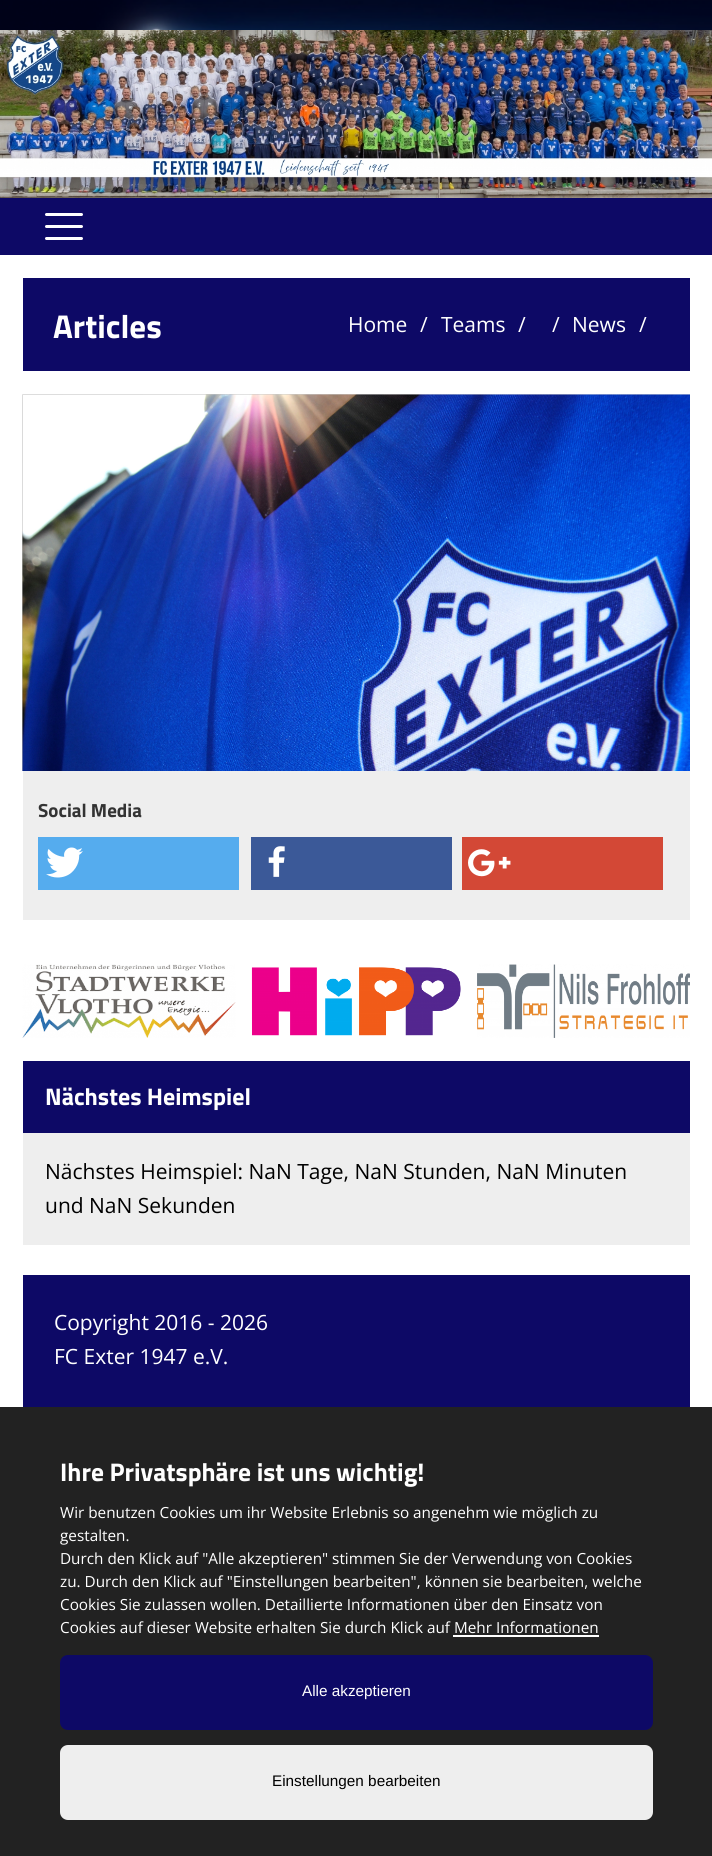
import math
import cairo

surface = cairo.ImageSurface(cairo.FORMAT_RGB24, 712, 1856)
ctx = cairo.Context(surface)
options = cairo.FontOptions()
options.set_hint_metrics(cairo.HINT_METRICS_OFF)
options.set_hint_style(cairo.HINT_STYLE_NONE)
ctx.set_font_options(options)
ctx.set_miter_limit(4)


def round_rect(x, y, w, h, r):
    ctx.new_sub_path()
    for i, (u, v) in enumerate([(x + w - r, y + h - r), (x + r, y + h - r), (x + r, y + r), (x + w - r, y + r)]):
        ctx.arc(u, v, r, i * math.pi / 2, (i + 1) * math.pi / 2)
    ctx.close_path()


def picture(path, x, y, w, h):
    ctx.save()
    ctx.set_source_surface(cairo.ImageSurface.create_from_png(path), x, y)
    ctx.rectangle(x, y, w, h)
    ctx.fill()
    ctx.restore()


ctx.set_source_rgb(1, 1, 1)
ctx.paint()
picture("img1.png", 0, 0, 712, 30)
picture("img2.png", 0, 30, 712, 168)
ctx.set_source_rgb(0.051, 0.039, 0.4)
ctx.rectangle(0, 198, 712, 57)
ctx.fill()
ctx.set_source_rgb(1, 1, 1)
round_rect(45, 213, 38, 3, 1.5)
ctx.fill()
round_rect(45, 225, 38, 3, 1.5)
ctx.fill()
round_rect(45, 237, 38, 3, 1.5)
ctx.fill()
ctx.set_source_rgb(0.051, 0.039, 0.4)
ctx.rectangle(23, 278, 667, 93)
ctx.fill()
ctx.select_font_face("Titillium Web", cairo.FONT_SLANT_NORMAL, cairo.FONT_WEIGHT_BOLD)
ctx.set_font_size(33)
ctx.set_source_rgb(1, 1, 1)
ctx.move_to(53, 338)
ctx.show_text("Articles")
ctx.select_font_face("Open Sans")
ctx.set_font_size(21)
ctx.move_to(348, 332)
ctx.show_text("Home")
ctx.move_to(420, 332)
ctx.show_text("/")
ctx.move_to(441, 332)
ctx.show_text("Teams")
ctx.move_to(518, 332)
ctx.show_text("/")
ctx.move_to(552, 332)
ctx.show_text("/")
ctx.move_to(572, 332)
ctx.show_text("News")
ctx.move_to(639, 332)
ctx.show_text("/")
ctx.set_source_rgb(0.933, 0.933, 0.933)
ctx.rectangle(23, 771, 667, 149)
ctx.fill()
picture("img3.png", 22, 394, 668, 377)
picture("img4.png", 22, 394, 668, 377)
ctx.select_font_face("Titillium Web", cairo.FONT_SLANT_NORMAL, cairo.FONT_WEIGHT_BOLD)
ctx.set_font_size(19)
ctx.set_source_rgb(0.2, 0.2, 0.2)
ctx.move_to(38, 817)
ctx.show_text("Social Media")
ctx.set_source_rgb(0.333, 0.675, 0.933)
ctx.rectangle(38, 837, 201, 53)
ctx.fill()
picture("img5.png", 46, 847, 37, 31)
ctx.set_source_rgb(0.231, 0.349, 0.596)
ctx.rectangle(251, 837, 201, 53)
ctx.fill()
picture("img6.png", 268, 846, 17, 31)
ctx.set_source_rgb(0.827, 0.282, 0.212)
ctx.rectangle(462, 837, 201, 53)
ctx.fill()
picture("img7.png", 468, 849, 43, 28)
picture("img8.png", 22, 964, 214, 74)
picture("img9.png", 251, 967, 210, 69)
picture("img10.png", 477, 964, 213, 74)
ctx.set_source_rgb(0.933, 0.933, 0.933)
ctx.rectangle(23, 1133, 667, 112)
ctx.fill()
ctx.set_source_rgb(0.051, 0.039, 0.4)
ctx.rectangle(23, 1061, 667, 72)
ctx.fill()
ctx.set_font_size(24)
ctx.set_source_rgb(1, 1, 1)
ctx.move_to(45, 1105)
ctx.show_text("Nächstes Heimspiel")
ctx.select_font_face("Open Sans")
ctx.set_font_size(21)
ctx.set_source_rgb(0, 0, 0)
ctx.move_to(45, 1179)
ctx.show_text("Nächstes Heimspiel: NaN Tage, NaN Stunden, NaN Minuten")
ctx.move_to(45, 1213)
ctx.show_text("und NaN Sekunden")
ctx.set_source_rgb(0.051, 0.039, 0.4)
ctx.rectangle(23, 1275, 667, 132)
ctx.fill()
ctx.set_source_rgb(1, 1, 1)
ctx.move_to(54, 1330)
ctx.show_text("Copyright 2016 - 2026")
ctx.move_to(54, 1364)
ctx.show_text("FC Exter 1947 e.V.")
ctx.set_source_rgb(0.133, 0.133, 0.133)
ctx.rectangle(0, 1407, 712, 449)
ctx.fill()
ctx.select_font_face("Titillium Web", cairo.FONT_SLANT_NORMAL, cairo.FONT_WEIGHT_BOLD)
ctx.set_font_size(25.5)
ctx.set_source_rgb(1, 1, 1)
ctx.move_to(60, 1481)
ctx.show_text("Ihre Privatsphäre ist uns wichtig!")
ctx.select_font_face("Open Sans")
ctx.set_font_size(15.3)
ctx.move_to(60, 1518)
ctx.show_text("Wir benutzen Cookies um ihr Website Erlebnis so")
ctx.move_to(413, 1518)
ctx.show_text("angenehm wie möglich zu")
ctx.move_to(60, 1541)
ctx.show_text("gestalten.")
ctx.move_to(60, 1564)
ctx.show_text("Durch den Klick auf \"Alle akzeptieren\" stimmen Sie der Verwendung von Cookies")
ctx.move_to(60, 1587)
ctx.show_text("zu. Durch den Klick auf \"Einstellungen bearbeiten\", können sie bearbeiten, welche")
ctx.move_to(60, 1610)
ctx.show_text("Cookies Sie zulassen wollen. Detaillierte Informationen über den Einsatz von")
ctx.move_to(60, 1633)
ctx.show_text("Cookies auf dieser Website erhalten Sie durch Klick auf Mehr Informationen")
ctx.rectangle(453, 1635, 146, 2)
ctx.fill()
ctx.set_source_rgb(0.051, 0.039, 0.4)
round_rect(60, 1655, 593, 75, 8)
ctx.fill()
ctx.select_font_face("Liberation Sans")
ctx.set_source_rgb(1, 1, 1)
ctx.move_to(302, 1696)
ctx.show_text("Alle akzeptieren")
ctx.set_source_rgb(0.933, 0.933, 0.933)
round_rect(60, 1745, 593, 75, 8)
ctx.fill()
ctx.set_source_rgb(0, 0, 0)
ctx.move_to(272, 1786)
ctx.show_text("Einstellungen bearbeiten")
surface.write_to_png("page.png")
